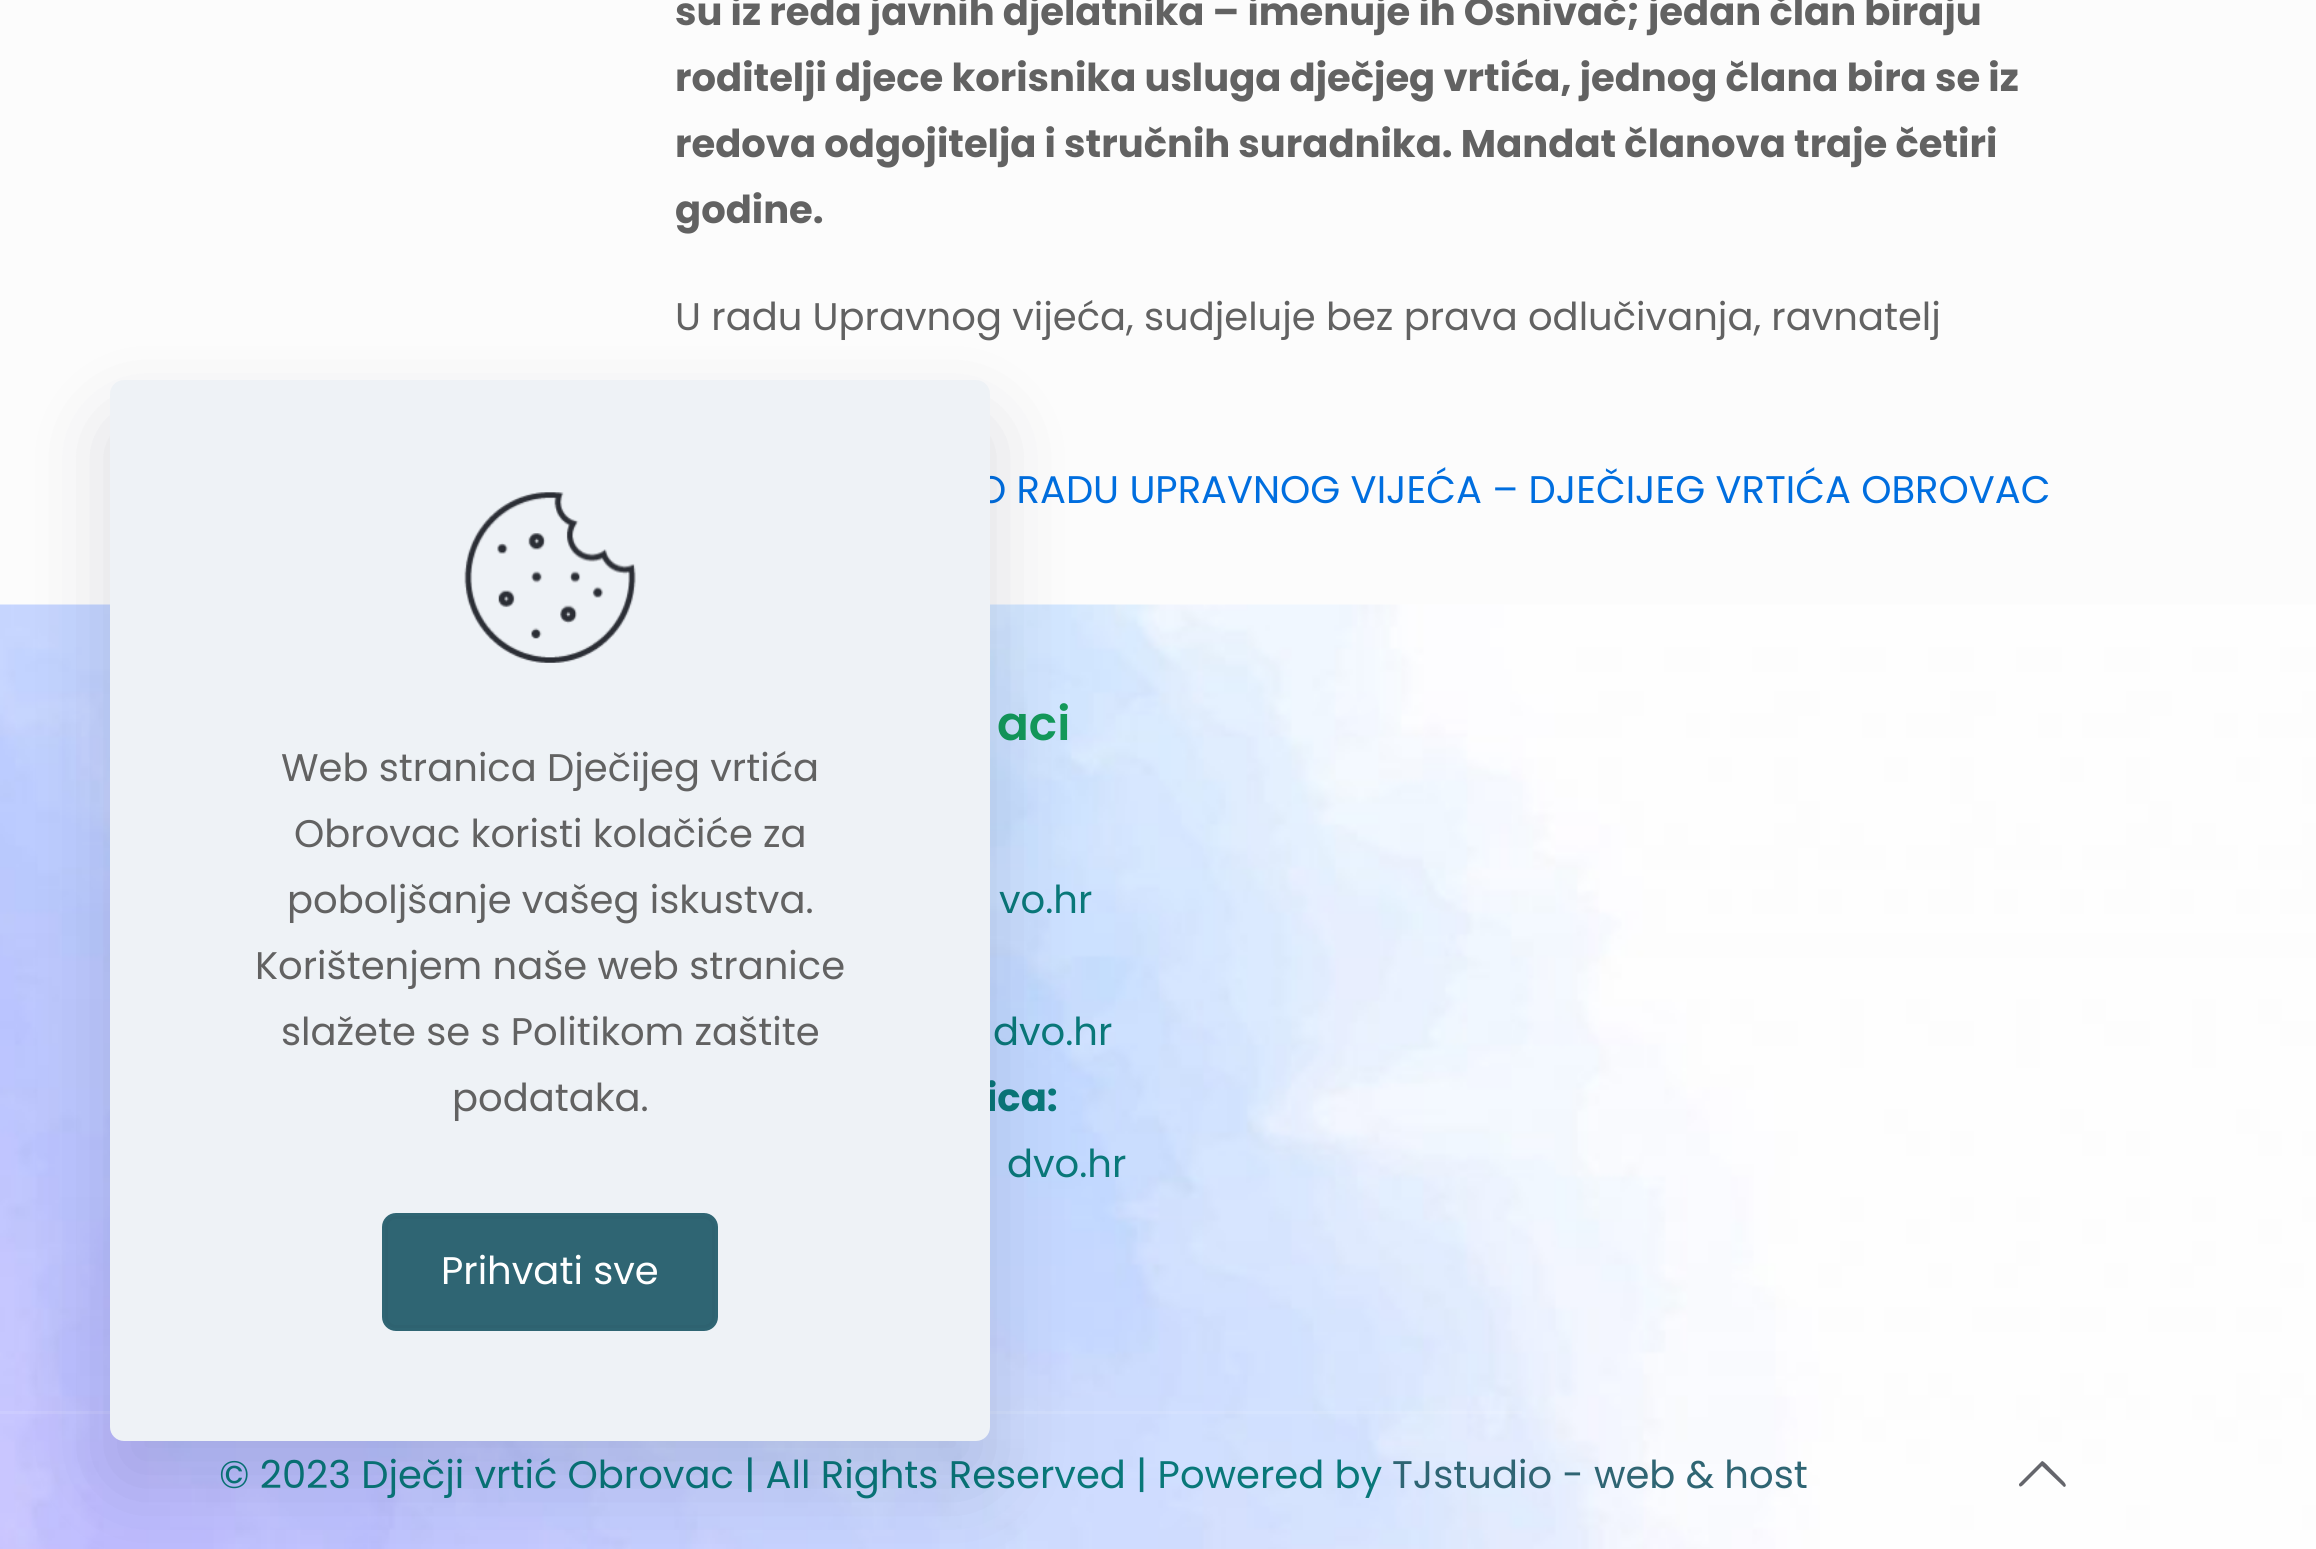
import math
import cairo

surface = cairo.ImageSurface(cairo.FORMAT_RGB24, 2316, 1549)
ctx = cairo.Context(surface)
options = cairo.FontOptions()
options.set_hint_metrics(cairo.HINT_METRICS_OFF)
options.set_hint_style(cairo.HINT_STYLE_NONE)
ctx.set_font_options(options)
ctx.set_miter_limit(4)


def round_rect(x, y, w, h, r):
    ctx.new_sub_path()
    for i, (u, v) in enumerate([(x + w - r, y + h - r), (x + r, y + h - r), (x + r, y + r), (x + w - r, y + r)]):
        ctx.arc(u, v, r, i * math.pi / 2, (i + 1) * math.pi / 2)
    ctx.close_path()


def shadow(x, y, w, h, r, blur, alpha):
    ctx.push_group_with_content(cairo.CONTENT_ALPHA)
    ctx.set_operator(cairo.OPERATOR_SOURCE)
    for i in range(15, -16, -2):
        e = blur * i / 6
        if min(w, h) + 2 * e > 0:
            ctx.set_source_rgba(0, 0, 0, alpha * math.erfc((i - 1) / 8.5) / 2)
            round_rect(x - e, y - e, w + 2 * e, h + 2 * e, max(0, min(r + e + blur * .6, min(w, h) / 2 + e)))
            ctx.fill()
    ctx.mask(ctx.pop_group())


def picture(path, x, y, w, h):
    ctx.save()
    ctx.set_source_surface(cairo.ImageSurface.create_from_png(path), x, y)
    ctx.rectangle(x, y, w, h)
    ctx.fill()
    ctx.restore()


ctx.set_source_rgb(0.988, 0.988, 0.988)
ctx.paint()
ctx.select_font_face("Poppins", cairo.FONT_SLANT_NORMAL, cairo.FONT_WEIGHT_BOLD)
ctx.set_font_size(38.5)
ctx.set_source_rgb(0.384, 0.384, 0.384)
ctx.move_to(675, 25)
ctx.show_text("su iz reda javnih djelatnika – imenuje ih Osnivač; jedan član biraju")
ctx.move_to(675, 91)
ctx.show_text("roditelji djece korisnika usluga dječjeg vrtića, jednog člana bira se iz")
ctx.move_to(675, 157)
ctx.show_text("redova odgojitelja i stručnih suradnika. Mandat članova traje četiri")
ctx.move_to(675, 223)
ctx.show_text("godine.")
ctx.select_font_face("Poppins")
ctx.move_to(675, 330)
ctx.show_text("U radu Upravnog vijeća, sudjeluje bez prava odlučivanja, ravnatelj")
ctx.set_source_rgb(0, 0.431, 0.875)
ctx.move_to(976, 503)
ctx.show_text("O RADU UPRAVNOG VIJEĆA – DJEČIJEG VRTIĆA OBROVAC")
picture("img1.png", 0, 604, 2316, 945)
ctx.select_font_face("Poppins SemiBold")
ctx.set_font_size(47)
ctx.set_source_rgb(0.075, 0.6, 0.353)
ctx.move_to(997, 740)
ctx.show_text("aci")
ctx.select_font_face("Poppins")
ctx.set_font_size(38.5)
ctx.set_source_rgb(0.039, 0.471, 0.475)
ctx.move_to(999, 913)
ctx.show_text("vo.hr")
ctx.move_to(993, 1045)
ctx.show_text("dvo.hr")
ctx.select_font_face("Poppins", cairo.FONT_SLANT_NORMAL, cairo.FONT_WEIGHT_BOLD)
ctx.move_to(986, 1111)
ctx.show_text("ica:")
ctx.select_font_face("Poppins")
ctx.move_to(1007, 1177)
ctx.show_text("dvo.hr")
ctx.set_source_rgba(1, 1, 1, 0.1)
ctx.rectangle(0, 1411, 1522, 3)
ctx.fill()
ctx.set_source_rgb(0.039, 0.471, 0.475)
ctx.move_to(219, 1488)
ctx.show_text("© 2023 Dječji vrtić Obrovac | All Rights Reserved | Powered by")
ctx.set_source_rgb(0.184, 0.396, 0.451)
ctx.move_to(1392, 1488)
ctx.show_text("TJstudio - web & host")
ctx.set_source_rgb(0.396, 0.4, 0.424)
ctx.new_path()
ctx.move_to(2063, 1486)
ctx.line_to(2042, 1466)
ctx.line_to(2025, 1483)
ctx.curve_to(2024, 1484, 2020, 1489, 2019, 1485)
ctx.line_to(2019, 1484)
ctx.line_to(2042, 1461)
ctx.curve_to(2044, 1461, 2050, 1468, 2051, 1469)
ctx.line_to(2062, 1480)
ctx.curve_to(2062, 1480, 2069, 1486, 2064, 1487)
ctx.close_path()
ctx.fill()
ctx.set_source_rgb(0.004, 0.027, 0.153)
shadow(110, 421, 880, 1061, 14, 41, 0.13)
ctx.set_source_rgb(0.933, 0.949, 0.961)
round_rect(110, 380, 880, 1061, 14)
ctx.fill()
picture("img2.png", 464, 492, 172, 171)
ctx.set_source_rgb(0.384, 0.384, 0.384)
ctx.move_to(281, 781)
ctx.show_text("Web stranica Dječijeg vrtića")
ctx.move_to(294, 847)
ctx.show_text("Obrovac koristi kolačiće za")
ctx.move_to(287, 913)
ctx.show_text("poboljšanje vašeg iskustva.")
ctx.move_to(255, 979)
ctx.show_text("Korištenjem naše web stranice")
ctx.move_to(281, 1045)
ctx.show_text("slažete se s Politikom zaštite")
ctx.move_to(452, 1111)
ctx.show_text("podataka.")
ctx.set_source_rgb(0.184, 0.396, 0.451)
round_rect(382, 1213, 336, 118, 14)
ctx.fill()
round_rect(386.5, 1217.5, 327, 109, 9.5)
ctx.set_source_rgb(0.18, 0.384, 0.439)
ctx.set_line_width(3)
ctx.stroke()
ctx.set_source_rgb(1, 1, 1)
ctx.move_to(441, 1284)
ctx.show_text("Prihvati sve")
surface.write_to_png("page.png")
